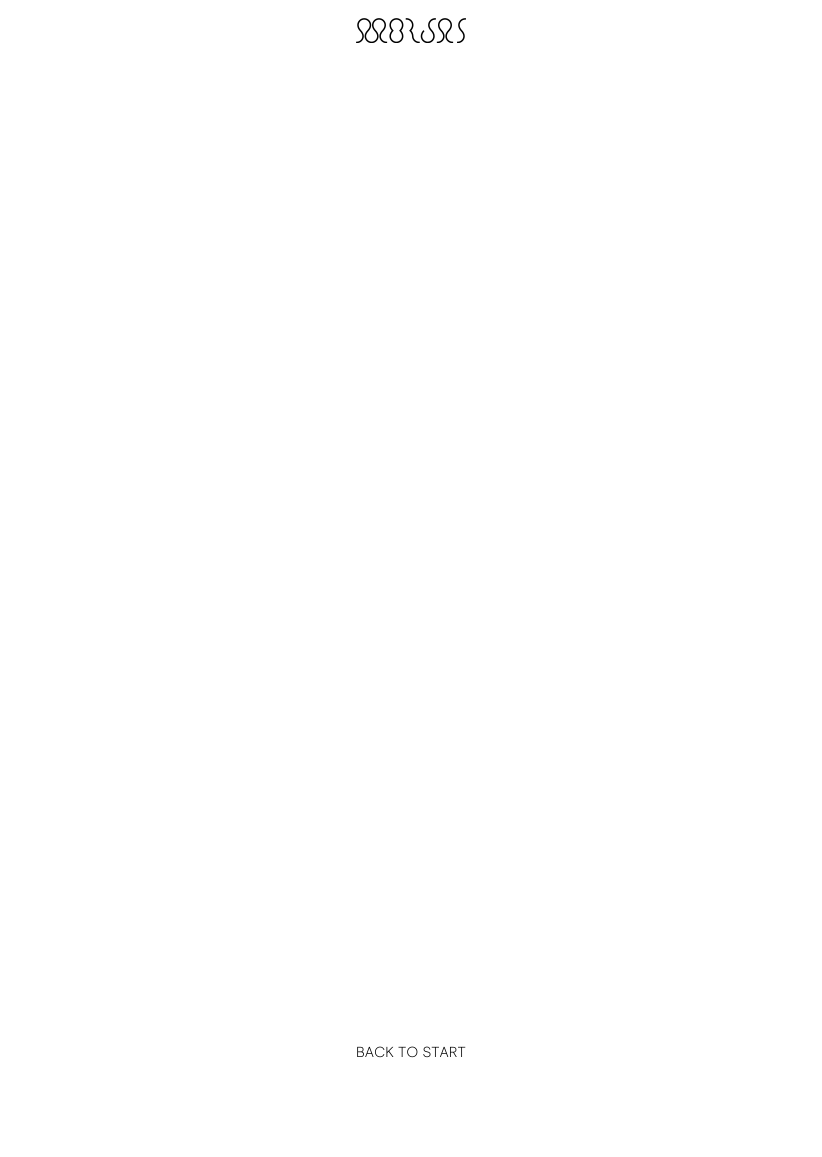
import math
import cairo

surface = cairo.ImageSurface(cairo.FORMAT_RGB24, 822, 1157)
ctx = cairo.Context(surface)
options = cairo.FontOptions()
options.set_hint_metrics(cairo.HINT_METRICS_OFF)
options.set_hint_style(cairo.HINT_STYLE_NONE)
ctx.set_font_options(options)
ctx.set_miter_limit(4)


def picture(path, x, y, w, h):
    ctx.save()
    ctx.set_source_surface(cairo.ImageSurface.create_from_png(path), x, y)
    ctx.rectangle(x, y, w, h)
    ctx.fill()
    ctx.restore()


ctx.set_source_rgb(1, 1, 1)
ctx.paint()
picture("img1.png", 356, 18, 110, 25)
ctx.select_font_face("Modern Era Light")
ctx.set_font_size(14.5)
ctx.set_source_rgb(0, 0, 0)
ctx.move_to(356, 1057)
ctx.show_text("BACK TO START")
surface.write_to_png("page.png")
